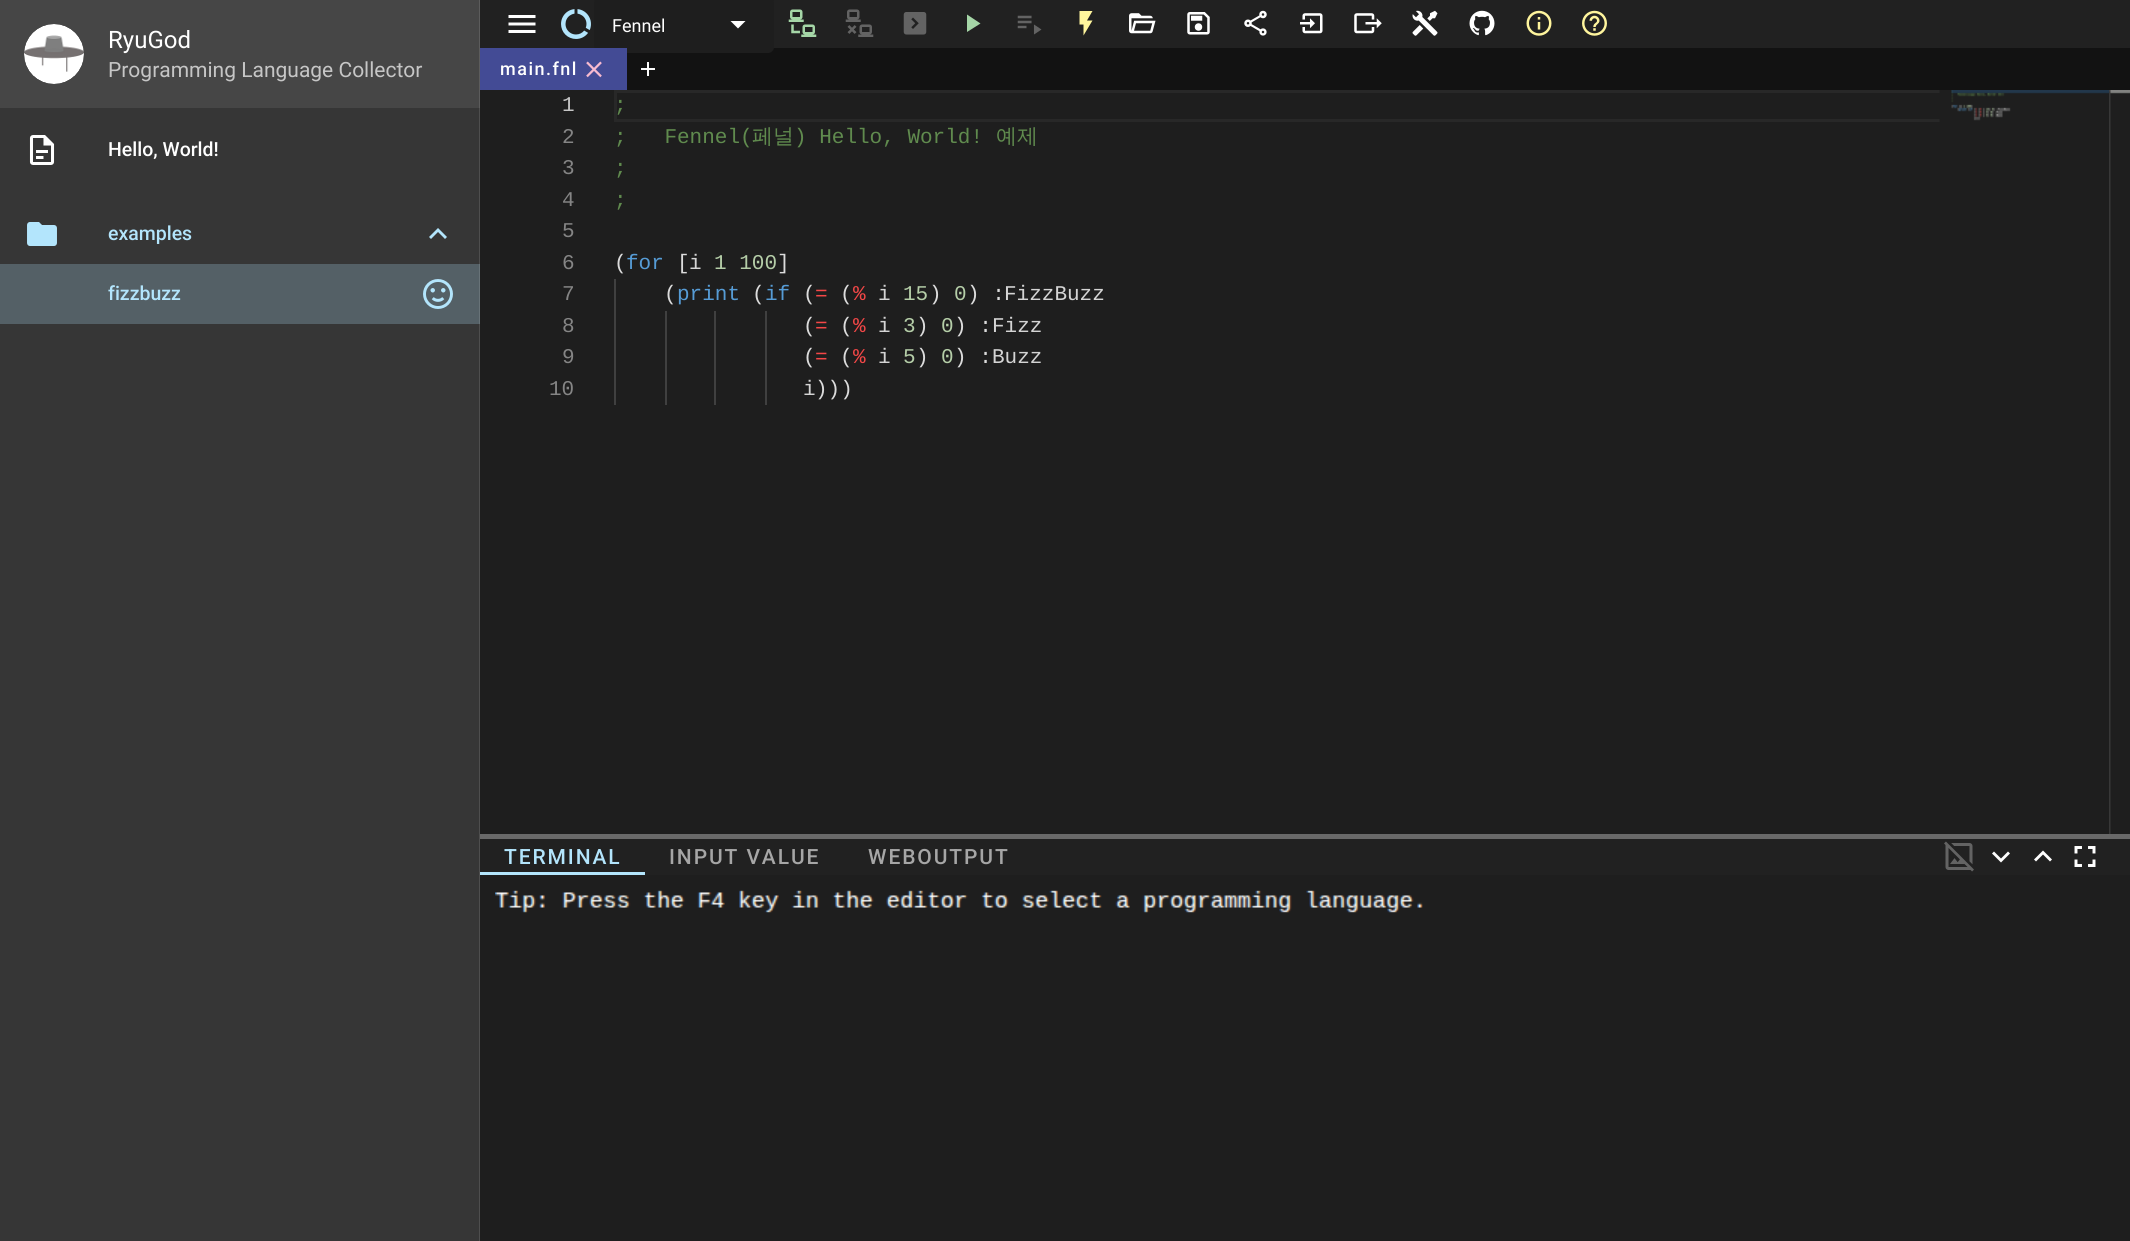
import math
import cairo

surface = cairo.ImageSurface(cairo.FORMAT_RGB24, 2130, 1241)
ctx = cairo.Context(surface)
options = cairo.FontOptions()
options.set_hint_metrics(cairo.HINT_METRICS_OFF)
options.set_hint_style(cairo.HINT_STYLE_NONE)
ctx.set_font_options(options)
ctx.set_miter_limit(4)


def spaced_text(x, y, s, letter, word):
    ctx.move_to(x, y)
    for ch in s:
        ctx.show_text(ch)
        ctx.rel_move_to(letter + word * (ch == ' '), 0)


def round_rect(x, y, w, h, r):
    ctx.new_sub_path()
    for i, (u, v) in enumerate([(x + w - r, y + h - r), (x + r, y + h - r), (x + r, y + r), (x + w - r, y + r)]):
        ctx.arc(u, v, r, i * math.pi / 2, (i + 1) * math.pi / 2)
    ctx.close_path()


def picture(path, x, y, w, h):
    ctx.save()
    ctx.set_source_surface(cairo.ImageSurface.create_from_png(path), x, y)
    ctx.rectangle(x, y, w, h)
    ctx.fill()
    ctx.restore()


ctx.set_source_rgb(0.071, 0.071, 0.071)
ctx.paint()
ctx.set_source_rgb(0.212, 0.212, 0.212)
ctx.rectangle(0, 0, 480, 1241)
ctx.fill()
ctx.set_source_rgb(0.329, 0.376, 0.4)
ctx.rectangle(0, 264, 480, 60)
ctx.fill()
ctx.set_source_rgba(1, 1, 1, 0.08)
ctx.rectangle(0, 0, 480, 108)
ctx.fill()
picture("img1.png", 24, 24, 60, 60)
ctx.select_font_face("Roboto")
ctx.set_font_size(24)
ctx.set_source_rgb(1, 1, 1)
ctx.move_to(108, 48)
ctx.show_text("RyuGod")
ctx.set_font_size(21)
ctx.set_source_rgb(0.776, 0.776, 0.776)
ctx.move_to(108, 77)
ctx.show_text("Programming Language Collector")
ctx.set_source_rgba(1, 1, 1, 0.12)
ctx.rectangle(479, 0, 1, 1241)
ctx.fill()
picture("img2.png", 29, 135, 26, 30)
ctx.select_font_face("Roboto Medium")
ctx.set_font_size(19.5)
ctx.set_source_rgb(1, 1, 1)
ctx.move_to(108, 156)
ctx.show_text("Hello, World!")
picture("img3.png", 27, 222, 30, 24)
ctx.set_source_rgb(0.702, 0.898, 0.988)
ctx.move_to(108, 240)
ctx.show_text("examples")
ctx.new_path()
ctx.move_to(445, 239)
ctx.line_to(438, 232)
ctx.line_to(431, 239)
ctx.line_to(429, 237)
ctx.line_to(438, 228)
ctx.line_to(447, 237)
ctx.close_path()
ctx.fill()
ctx.move_to(108, 300)
ctx.show_text("fizzbuzz")
picture("img4.png", 423, 279, 30, 30)
ctx.set_source_rgb(0.129, 0.129, 0.129)
ctx.rectangle(480, 0, 1650, 48)
ctx.fill()
picture("img5.png", 508, 15, 28, 18)
picture("img6.png", 561, 9, 30, 30)
ctx.set_source_rgb(0.118, 0.118, 0.118)
round_rect(594, -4, 180, 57, 6)
ctx.fill()
ctx.select_font_face("Roboto")
ctx.set_font_size(18)
ctx.set_source_rgb(1, 1, 1)
ctx.move_to(612, 32)
ctx.show_text("Fennel")
ctx.new_path()
ctx.move_to(730.5, 21)
ctx.line_to(738, 28.5)
ctx.line_to(745.5, 21)
ctx.close_path()
ctx.fill()
picture("img7.png", 788, 9, 29, 28)
picture("img8.png", 845, 9, 29, 28)
picture("img9.png", 903, 12, 24, 23)
ctx.set_source_rgb(0.647, 0.839, 0.655)
ctx.new_path()
ctx.move_to(967, 14.5)
ctx.line_to(967, 32)
ctx.line_to(980.5, 23.5)
ctx.close_path()
ctx.fill()
picture("img10.png", 1017, 15, 25, 20)
ctx.set_source_rgb(1, 0.961, 0.616)
ctx.new_path()
ctx.move_to(1079.5, 11)
ctx.line_to(1079.5, 24.5)
ctx.line_to(1083.5, 24.5)
ctx.line_to(1083.5, 35.5)
ctx.line_to(1092.5, 20.5)
ctx.line_to(1087, 20.5)
ctx.line_to(1092.5, 11)
ctx.close_path()
ctx.fill()
picture("img11.png", 1129, 13, 27, 21)
picture("img12.png", 1187, 12, 23, 23)
picture("img13.png", 1244, 10, 23, 26)
picture("img14.png", 1300, 13, 23, 21)
picture("img15.png", 1354, 13, 28, 21)
picture("img16.png", 1412, 10, 26, 26)
picture("img17.png", 1469, 10, 26, 26)
picture("img18.png", 1526, 10, 26, 26)
picture("img19.png", 1582, 10, 25, 26)
ctx.set_source_rgb(0.263, 0.294, 0.584)
ctx.rectangle(480, 48, 147, 42)
ctx.fill()
ctx.select_font_face("Roboto Medium")
ctx.set_source_rgb(1, 1, 1)
spaced_text(500, 75, "main.fnl", 1.5, 0)
picture("img20.png", 586, 61, 16, 17)
picture("img21.png", 641, 62, 14, 14)
ctx.set_source_rgb(0.118, 0.118, 0.118)
ctx.rectangle(480, 90, 1629, 744)
ctx.fill()
ctx.select_font_face("Liberation Mono")
ctx.set_font_size(21)
ctx.set_source_rgb(0.776, 0.776, 0.776)
ctx.move_to(562, 111)
ctx.show_text("1")
ctx.set_source_rgb(0.522, 0.522, 0.522)
ctx.move_to(562, 143)
ctx.show_text("2")
ctx.move_to(562, 174)
ctx.show_text("3")
ctx.move_to(562, 206)
ctx.show_text("4")
ctx.move_to(562, 237)
ctx.show_text("5")
ctx.move_to(562, 269)
ctx.show_text("6")
ctx.move_to(562, 300)
ctx.show_text("7")
ctx.move_to(562, 332)
ctx.show_text("8")
ctx.move_to(562, 363)
ctx.show_text("9")
ctx.move_to(549, 395)
ctx.show_text("10")
ctx.rectangle(615.5, 91.5, 1344, 29)
ctx.set_source_rgb(0.157, 0.157, 0.157)
ctx.set_line_width(3)
ctx.stroke()
ctx.set_source_rgb(0.251, 0.251, 0.251)
ctx.rectangle(614, 279, 2, 126)
ctx.fill()
ctx.rectangle(665, 311, 2, 94)
ctx.fill()
ctx.rectangle(714, 311, 2, 94)
ctx.fill()
ctx.rectangle(765, 311, 2, 94)
ctx.fill()
ctx.set_source_rgb(0.376, 0.545, 0.306)
ctx.move_to(614, 111)
ctx.show_text(";")
ctx.move_to(614, 143)
ctx.show_text(";   Fennel(")
ctx.select_font_face("WenQuanYi Zen Hei Medium")
ctx.move_to(752, 143)
ctx.show_text("페널")
ctx.select_font_face("Liberation Mono")
ctx.move_to(794, 143)
ctx.show_text(") Hello, World!")
ctx.select_font_face("WenQuanYi Zen Hei Medium")
ctx.move_to(996, 143)
ctx.show_text("예제")
ctx.select_font_face("Liberation Mono")
ctx.move_to(614, 174)
ctx.show_text(";")
ctx.move_to(614, 206)
ctx.show_text(";")
ctx.set_source_rgb(0.863, 0.863, 0.863)
ctx.move_to(614, 269)
ctx.show_text("(")
ctx.set_source_rgb(0.337, 0.612, 0.839)
ctx.move_to(626, 269)
ctx.show_text("for")
ctx.set_source_rgb(0.863, 0.863, 0.863)
ctx.move_to(677, 269)
ctx.show_text("[")
ctx.set_source_rgb(0.831, 0.831, 0.831)
ctx.move_to(689, 269)
ctx.show_text("i")
ctx.set_source_rgb(0.71, 0.808, 0.659)
ctx.move_to(714, 269)
ctx.show_text("1 100")
ctx.set_source_rgb(0.863, 0.863, 0.863)
ctx.move_to(777, 269)
ctx.show_text("]")
ctx.move_to(664, 300)
ctx.show_text("(")
ctx.set_source_rgb(0.337, 0.612, 0.839)
ctx.move_to(677, 300)
ctx.show_text("print")
ctx.set_source_rgb(0.863, 0.863, 0.863)
ctx.move_to(752, 300)
ctx.show_text("(")
ctx.set_source_rgb(0.337, 0.612, 0.839)
ctx.move_to(765, 300)
ctx.show_text("if")
ctx.set_source_rgb(0.863, 0.863, 0.863)
ctx.move_to(803, 300)
ctx.show_text("(")
ctx.set_source_rgb(0.957, 0.278, 0.278)
ctx.move_to(815, 300)
ctx.show_text("=")
ctx.set_source_rgb(0.863, 0.863, 0.863)
ctx.move_to(840, 300)
ctx.show_text("(")
ctx.set_source_rgb(0.957, 0.278, 0.278)
ctx.move_to(853, 300)
ctx.show_text("%")
ctx.set_source_rgb(0.831, 0.831, 0.831)
ctx.move_to(878, 300)
ctx.show_text("i")
ctx.set_source_rgb(0.71, 0.808, 0.659)
ctx.move_to(903, 300)
ctx.show_text("15")
ctx.set_source_rgb(0.863, 0.863, 0.863)
ctx.move_to(929, 300)
ctx.show_text(")")
ctx.set_source_rgb(0.71, 0.808, 0.659)
ctx.move_to(954, 300)
ctx.show_text("0")
ctx.set_source_rgb(0.863, 0.863, 0.863)
ctx.move_to(967, 300)
ctx.show_text(") :")
ctx.set_source_rgb(0.831, 0.831, 0.831)
ctx.move_to(1004, 300)
ctx.show_text("FizzBuzz")
ctx.set_source_rgb(0.863, 0.863, 0.863)
ctx.move_to(803, 332)
ctx.show_text("(")
ctx.set_source_rgb(0.957, 0.278, 0.278)
ctx.move_to(815, 332)
ctx.show_text("=")
ctx.set_source_rgb(0.863, 0.863, 0.863)
ctx.move_to(840, 332)
ctx.show_text("(")
ctx.set_source_rgb(0.957, 0.278, 0.278)
ctx.move_to(853, 332)
ctx.show_text("%")
ctx.set_source_rgb(0.831, 0.831, 0.831)
ctx.move_to(878, 332)
ctx.show_text("i")
ctx.set_source_rgb(0.71, 0.808, 0.659)
ctx.move_to(903, 332)
ctx.show_text("3")
ctx.set_source_rgb(0.863, 0.863, 0.863)
ctx.move_to(916, 332)
ctx.show_text(")")
ctx.set_source_rgb(0.71, 0.808, 0.659)
ctx.move_to(941, 332)
ctx.show_text("0")
ctx.set_source_rgb(0.863, 0.863, 0.863)
ctx.move_to(954, 332)
ctx.show_text(") :")
ctx.set_source_rgb(0.831, 0.831, 0.831)
ctx.move_to(992, 332)
ctx.show_text("Fizz")
ctx.set_source_rgb(0.863, 0.863, 0.863)
ctx.move_to(803, 363)
ctx.show_text("(")
ctx.set_source_rgb(0.957, 0.278, 0.278)
ctx.move_to(815, 363)
ctx.show_text("=")
ctx.set_source_rgb(0.863, 0.863, 0.863)
ctx.move_to(840, 363)
ctx.show_text("(")
ctx.set_source_rgb(0.957, 0.278, 0.278)
ctx.move_to(853, 363)
ctx.show_text("%")
ctx.set_source_rgb(0.831, 0.831, 0.831)
ctx.move_to(878, 363)
ctx.show_text("i")
ctx.set_source_rgb(0.71, 0.808, 0.659)
ctx.move_to(903, 363)
ctx.show_text("5")
ctx.set_source_rgb(0.863, 0.863, 0.863)
ctx.move_to(916, 363)
ctx.show_text(")")
ctx.set_source_rgb(0.71, 0.808, 0.659)
ctx.move_to(941, 363)
ctx.show_text("0")
ctx.set_source_rgb(0.863, 0.863, 0.863)
ctx.move_to(954, 363)
ctx.show_text(") :")
ctx.set_source_rgb(0.831, 0.831, 0.831)
ctx.move_to(992, 363)
ctx.show_text("Buzz")
ctx.move_to(803, 395)
ctx.show_text("i")
ctx.set_source_rgb(0.863, 0.863, 0.863)
ctx.move_to(815, 395)
ctx.show_text(")))")
picture("img22.png", 2109, 90, 21, 744)
picture("img23.png", 1939, 90, 72, 32)
picture("img24.png", 1951, 90, 158, 4)
ctx.set_source_rgb(0.412, 0.412, 0.412)
ctx.rectangle(480, 834, 1650, 5)
ctx.fill()
ctx.set_source_rgb(0.129, 0.129, 0.129)
ctx.rectangle(480, 839, 1650, 36)
ctx.fill()
ctx.select_font_face("Roboto Medium")
ctx.set_source_rgb(0.702, 0.898, 0.988)
spaced_text(504, 864, "TERMINAL", 1.9, 0)
ctx.set_source_rgb(0.651, 0.651, 0.651)
spaced_text(669, 864, "INPUT VALUE", 1.9, 0)
spaced_text(868, 864, "WEBOUTPUT", 1.9, 0)
ctx.set_source_rgb(0.702, 0.898, 0.988)
ctx.rectangle(480, 872, 165, 3)
ctx.fill()
picture("img25.png", 1944, 841, 30, 31)
ctx.set_source_rgb(1, 1, 1)
ctx.new_path()
ctx.move_to(1994, 851.5)
ctx.line_to(2001, 858.5)
ctx.line_to(2008, 851.5)
ctx.line_to(2010, 853.5)
ctx.line_to(2001, 862.5)
ctx.line_to(1992, 853.5)
ctx.close_path()
ctx.move_to(2036, 861.5)
ctx.line_to(2043, 854.5)
ctx.line_to(2050, 861.5)
ctx.line_to(2052, 859.5)
ctx.line_to(2043, 850.5)
ctx.line_to(2034, 859.5)
ctx.close_path()
ctx.fill()
picture("img26.png", 2074, 846, 22, 21)
ctx.set_source_rgb(0.118, 0.118, 0.118)
ctx.rectangle(480, 875, 1650, 366)
ctx.fill()
picture("img27.png", 495, 890, 928, 23)
surface.write_to_png("page.png")
